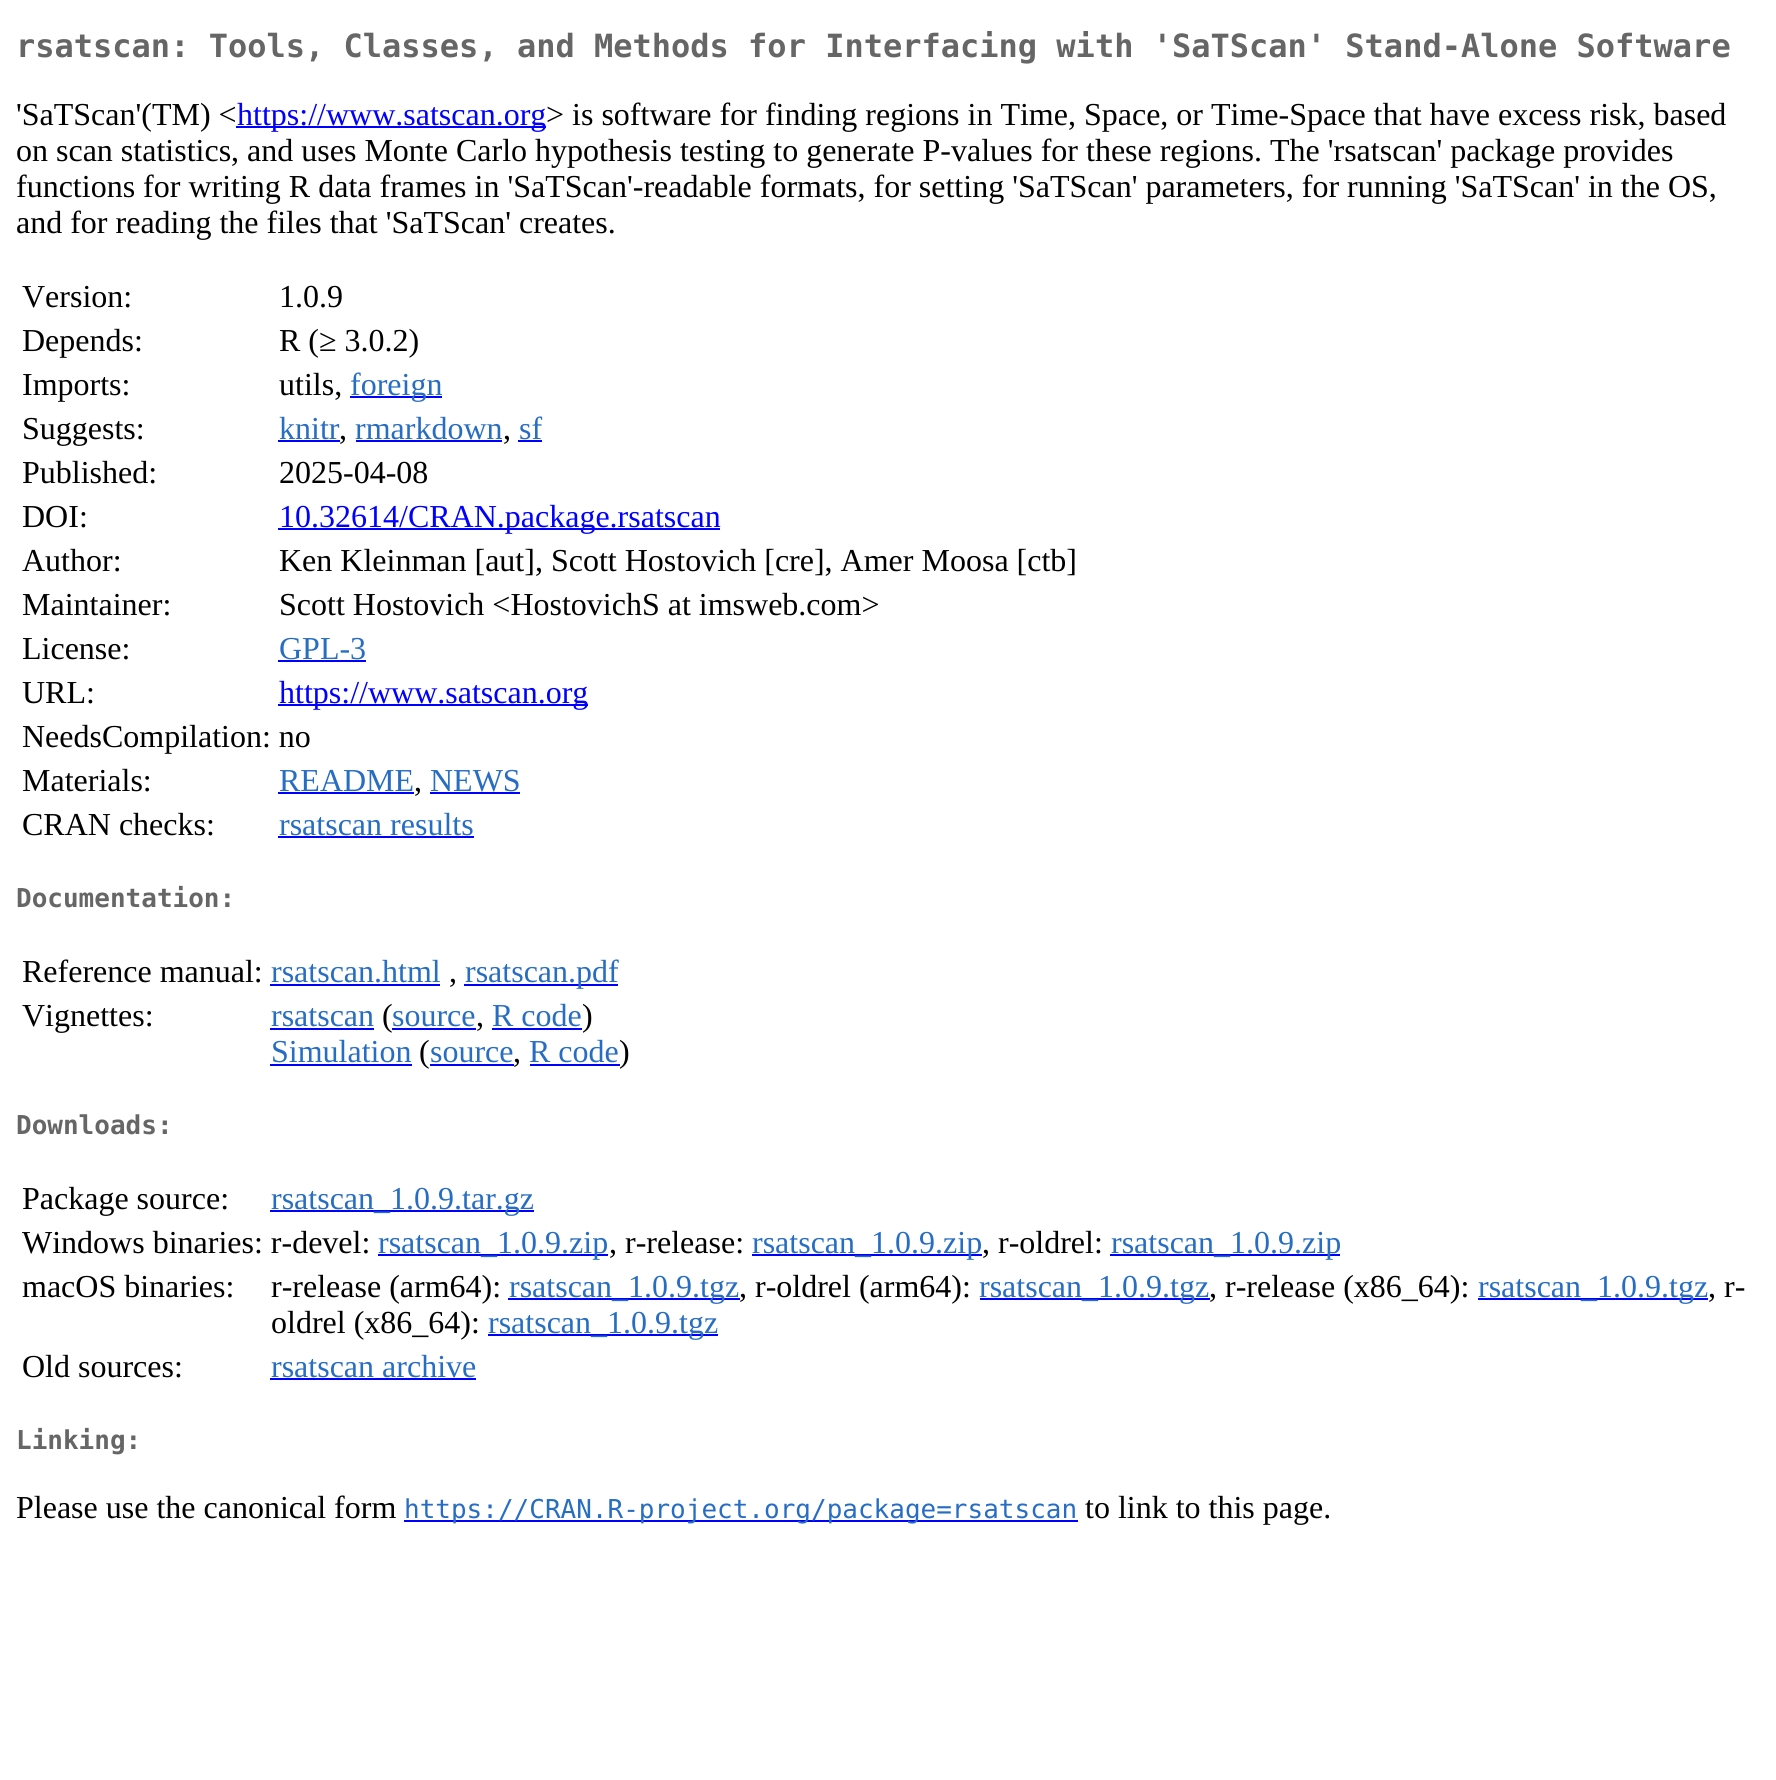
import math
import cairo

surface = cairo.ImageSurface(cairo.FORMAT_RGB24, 1776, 1780)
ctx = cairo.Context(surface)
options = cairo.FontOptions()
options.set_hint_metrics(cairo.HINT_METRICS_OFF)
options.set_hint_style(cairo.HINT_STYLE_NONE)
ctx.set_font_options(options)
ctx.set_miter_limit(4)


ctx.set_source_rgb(1, 1, 1)
ctx.paint()
ctx.select_font_face("DejaVu Sans Mono", cairo.FONT_SLANT_NORMAL, cairo.FONT_WEIGHT_BOLD)
ctx.set_font_size(32)
ctx.set_source_rgb(0.4, 0.4, 0.4)
ctx.move_to(16, 57)
ctx.show_text("rsatscan: Tools, Classes, and Methods for Interfacing with 'SaTScan' Stand-Alone Software")
ctx.select_font_face("Liberation Serif")
ctx.set_source_rgb(0, 0, 0)
ctx.move_to(16, 125)
ctx.show_text("'SaTScan'(TM) <")
ctx.set_source_rgb(0, 0, 1)
ctx.rectangle(236, 126, 310, 2)
ctx.fill()
ctx.move_to(237, 125)
ctx.show_text("https://www.satscan.org")
ctx.set_source_rgb(0, 0, 0)
ctx.move_to(546, 125)
ctx.show_text("> is software for finding regions in Time, Space, or Time-Space that have excess risk, based")
ctx.move_to(16, 161)
ctx.show_text("on scan statistics, and uses Monte Carlo hypothesis testing to generate P-values for these regions. The 'rsatscan' package provides")
ctx.move_to(16, 197)
ctx.show_text("functions for writing R data frames in 'SaTScan'-readable formats, for setting 'SaTScan' parameters, for running 'SaTScan' in the OS,")
ctx.move_to(16, 233)
ctx.show_text("and for reading the files that 'SaTScan' creates.")
ctx.move_to(22, 307)
ctx.show_text("Version:")
ctx.move_to(279, 307)
ctx.show_text("1.0.9")
ctx.move_to(22, 351)
ctx.show_text("Depends:")
ctx.move_to(279, 351)
ctx.show_text("R (≥ 3.0.2)")
ctx.move_to(22, 395)
ctx.show_text("Imports:")
ctx.move_to(279, 395)
ctx.show_text("utils,")
ctx.set_source_rgb(0, 0, 1)
ctx.rectangle(350, 396, 92, 2)
ctx.fill()
ctx.set_source_rgb(0.153, 0.427, 0.765)
ctx.move_to(350, 395)
ctx.show_text("foreign")
ctx.set_source_rgb(0, 0, 0)
ctx.move_to(22, 439)
ctx.show_text("Suggests:")
ctx.set_source_rgb(0.153, 0.427, 0.765)
ctx.move_to(279, 439)
ctx.show_text("knitr")
ctx.set_source_rgb(0, 0, 1)
ctx.rectangle(278, 440, 62, 2)
ctx.fill()
ctx.set_source_rgb(0, 0, 0)
ctx.move_to(339, 439)
ctx.show_text(",")
ctx.set_source_rgb(0.153, 0.427, 0.765)
ctx.move_to(355, 439)
ctx.show_text("rmarkdown")
ctx.set_source_rgb(0, 0, 1)
ctx.rectangle(356, 440, 146, 2)
ctx.fill()
ctx.set_source_rgb(0, 0, 0)
ctx.move_to(503, 439)
ctx.show_text(",")
ctx.set_source_rgb(0.153, 0.427, 0.765)
ctx.move_to(519, 439)
ctx.show_text("sf")
ctx.set_source_rgb(0, 0, 1)
ctx.rectangle(518, 440, 24, 2)
ctx.fill()
ctx.set_source_rgb(0, 0, 0)
ctx.move_to(22, 483)
ctx.show_text("Published:")
ctx.move_to(279, 483)
ctx.show_text("2025-04-08")
ctx.move_to(22, 527)
ctx.show_text("DOI:")
ctx.set_source_rgb(0, 0, 1)
ctx.rectangle(278, 528, 442, 2)
ctx.fill()
ctx.move_to(279, 527)
ctx.show_text("10.32614/CRAN.package.rsatscan")
ctx.set_source_rgb(0, 0, 0)
ctx.move_to(22, 571)
ctx.show_text("Author:")
ctx.move_to(279, 571)
ctx.show_text("Ken Kleinman [aut], Scott Hostovich [cre], Amer Moosa [ctb]")
ctx.move_to(22, 615)
ctx.show_text("Maintainer:")
ctx.move_to(279, 615)
ctx.show_text("Scott Hostovich <HostovichS at imsweb.com>")
ctx.move_to(22, 659)
ctx.show_text("License:")
ctx.set_source_rgb(0.153, 0.427, 0.765)
ctx.move_to(279, 659)
ctx.show_text("GPL-3")
ctx.set_source_rgb(0, 0, 1)
ctx.rectangle(278, 660, 88, 2)
ctx.fill()
ctx.set_source_rgb(0, 0, 0)
ctx.move_to(22, 703)
ctx.show_text("URL:")
ctx.set_source_rgb(0, 0, 1)
ctx.rectangle(278, 704, 310, 2)
ctx.fill()
ctx.move_to(279, 703)
ctx.show_text("https://www.satscan.org")
ctx.set_source_rgb(0, 0, 0)
ctx.move_to(22, 747)
ctx.show_text("NeedsCompilation: no")
ctx.move_to(22, 791)
ctx.show_text("Materials:")
ctx.set_source_rgb(0.153, 0.427, 0.765)
ctx.move_to(279, 791)
ctx.show_text("README")
ctx.set_source_rgb(0, 0, 1)
ctx.rectangle(278, 792, 136, 2)
ctx.fill()
ctx.set_source_rgb(0, 0, 0)
ctx.move_to(414, 791)
ctx.show_text(",")
ctx.set_source_rgb(0.153, 0.427, 0.765)
ctx.move_to(430, 791)
ctx.show_text("NEWS")
ctx.set_source_rgb(0, 0, 1)
ctx.rectangle(430, 792, 90, 2)
ctx.fill()
ctx.set_source_rgb(0, 0, 0)
ctx.move_to(22, 835)
ctx.show_text("CRAN checks:")
ctx.set_source_rgb(0.153, 0.427, 0.765)
ctx.move_to(279, 835)
ctx.show_text("rsatscan results")
ctx.set_source_rgb(0, 0, 1)
ctx.rectangle(278, 836, 196, 2)
ctx.fill()
ctx.select_font_face("DejaVu Sans Mono", cairo.FONT_SLANT_NORMAL, cairo.FONT_WEIGHT_BOLD)
ctx.set_font_size(26)
ctx.set_source_rgb(0.4, 0.4, 0.4)
ctx.move_to(16, 907)
ctx.show_text("Documentation:")
ctx.select_font_face("Liberation Serif")
ctx.set_font_size(32)
ctx.set_source_rgb(0, 0, 0)
ctx.move_to(22, 982)
ctx.show_text("Reference manual:")
ctx.set_source_rgb(0.153, 0.427, 0.765)
ctx.move_to(271, 982)
ctx.show_text("rsatscan.html")
ctx.set_source_rgb(0, 0, 1)
ctx.rectangle(270, 984, 170, 2)
ctx.fill()
ctx.set_source_rgb(0, 0, 0)
ctx.move_to(449, 982)
ctx.show_text(",")
ctx.set_source_rgb(0, 0, 1)
ctx.rectangle(464, 984, 154, 2)
ctx.fill()
ctx.set_source_rgb(0.153, 0.427, 0.765)
ctx.move_to(465, 982)
ctx.show_text("rsatscan.pdf")
ctx.set_source_rgb(0, 0, 0)
ctx.move_to(22, 1026)
ctx.show_text("Vignettes:")
ctx.set_source_rgb(0.153, 0.427, 0.765)
ctx.move_to(271, 1026)
ctx.show_text("rsatscan")
ctx.set_source_rgb(0, 0, 1)
ctx.rectangle(270, 1028, 104, 2)
ctx.fill()
ctx.set_source_rgb(0, 0, 0)
ctx.move_to(382, 1026)
ctx.show_text("(")
ctx.set_source_rgb(0.153, 0.427, 0.765)
ctx.move_to(392, 1026)
ctx.show_text("source")
ctx.set_source_rgb(0, 0, 1)
ctx.rectangle(392, 1028, 84, 2)
ctx.fill()
ctx.set_source_rgb(0, 0, 0)
ctx.move_to(476, 1026)
ctx.show_text(",")
ctx.set_source_rgb(0.153, 0.427, 0.765)
ctx.move_to(492, 1026)
ctx.show_text("R code")
ctx.set_source_rgb(0, 0, 1)
ctx.rectangle(492, 1028, 90, 2)
ctx.fill()
ctx.set_source_rgb(0, 0, 0)
ctx.move_to(582, 1026)
ctx.show_text(")")
ctx.set_source_rgb(0.153, 0.427, 0.765)
ctx.move_to(271, 1062)
ctx.show_text("Simulation")
ctx.set_source_rgb(0, 0, 1)
ctx.rectangle(270, 1064, 142, 2)
ctx.fill()
ctx.set_source_rgb(0, 0, 0)
ctx.move_to(419, 1062)
ctx.show_text("(")
ctx.set_source_rgb(0.153, 0.427, 0.765)
ctx.move_to(430, 1062)
ctx.show_text("source")
ctx.set_source_rgb(0, 0, 1)
ctx.rectangle(430, 1064, 84, 2)
ctx.fill()
ctx.set_source_rgb(0, 0, 0)
ctx.move_to(513, 1062)
ctx.show_text(",")
ctx.set_source_rgb(0.153, 0.427, 0.765)
ctx.move_to(529, 1062)
ctx.show_text("R code")
ctx.set_source_rgb(0, 0, 1)
ctx.rectangle(530, 1064, 90, 2)
ctx.fill()
ctx.set_source_rgb(0, 0, 0)
ctx.move_to(619, 1062)
ctx.show_text(")")
ctx.select_font_face("DejaVu Sans Mono", cairo.FONT_SLANT_NORMAL, cairo.FONT_WEIGHT_BOLD)
ctx.set_font_size(26)
ctx.set_source_rgb(0.4, 0.4, 0.4)
ctx.move_to(16, 1134)
ctx.show_text("Downloads:")
ctx.select_font_face("Liberation Serif")
ctx.set_font_size(32)
ctx.set_source_rgb(0, 0, 0)
ctx.move_to(22, 1209)
ctx.show_text("Package source:")
ctx.set_source_rgb(0, 0, 1)
ctx.rectangle(270, 1210, 264, 2)
ctx.fill()
ctx.set_source_rgb(0.153, 0.427, 0.765)
ctx.move_to(271, 1209)
ctx.show_text("rsatscan_1.0.9.tar.gz")
ctx.set_source_rgb(0, 0, 0)
ctx.move_to(22, 1253)
ctx.show_text("Windows binaries: r-devel:")
ctx.set_source_rgb(0, 0, 1)
ctx.rectangle(378, 1254, 230, 2)
ctx.fill()
ctx.set_source_rgb(0.153, 0.427, 0.765)
ctx.move_to(378, 1253)
ctx.show_text("rsatscan_1.0.9.zip")
ctx.set_source_rgb(0, 0, 0)
ctx.move_to(609, 1253)
ctx.show_text(", r-release:")
ctx.set_source_rgb(0, 0, 1)
ctx.rectangle(752, 1254, 230, 2)
ctx.fill()
ctx.set_source_rgb(0.153, 0.427, 0.765)
ctx.move_to(752, 1253)
ctx.show_text("rsatscan_1.0.9.zip")
ctx.set_source_rgb(0, 0, 0)
ctx.move_to(982, 1253)
ctx.show_text(", r-oldrel:")
ctx.set_source_rgb(0, 0, 1)
ctx.rectangle(1110, 1254, 230, 2)
ctx.fill()
ctx.set_source_rgb(0.153, 0.427, 0.765)
ctx.move_to(1111, 1253)
ctx.show_text("rsatscan_1.0.9.zip")
ctx.set_source_rgb(0, 0, 0)
ctx.move_to(22, 1297)
ctx.show_text("macOS binaries:")
ctx.move_to(271, 1297)
ctx.show_text("r-release (arm64):")
ctx.set_source_rgb(0, 0, 1)
ctx.rectangle(508, 1298, 232, 2)
ctx.fill()
ctx.set_source_rgb(0.153, 0.427, 0.765)
ctx.move_to(509, 1297)
ctx.show_text("rsatscan_1.0.9.tgz")
ctx.set_source_rgb(0, 0, 0)
ctx.move_to(739, 1297)
ctx.show_text(", r-oldrel (arm64):")
ctx.set_source_rgb(0, 0, 1)
ctx.rectangle(980, 1298, 230, 2)
ctx.fill()
ctx.set_source_rgb(0.153, 0.427, 0.765)
ctx.move_to(979, 1297)
ctx.show_text("rsatscan_1.0.9.tgz")
ctx.set_source_rgb(0, 0, 0)
ctx.move_to(1209, 1297)
ctx.show_text(", r-release (x86_64):")
ctx.set_source_rgb(0, 0, 1)
ctx.rectangle(1478, 1298, 230, 2)
ctx.fill()
ctx.set_source_rgb(0.153, 0.427, 0.765)
ctx.move_to(1478, 1297)
ctx.show_text("rsatscan_1.0.9.tgz")
ctx.set_source_rgb(0, 0, 0)
ctx.move_to(1708, 1297)
ctx.show_text(", r-")
ctx.move_to(271, 1333)
ctx.show_text("oldrel (x86_64):")
ctx.set_source_rgb(0, 0, 1)
ctx.rectangle(488, 1334, 230, 2)
ctx.fill()
ctx.set_source_rgb(0.153, 0.427, 0.765)
ctx.move_to(488, 1333)
ctx.show_text("rsatscan_1.0.9.tgz")
ctx.set_source_rgb(0, 0, 0)
ctx.move_to(22, 1377)
ctx.show_text("Old sources:")
ctx.set_source_rgb(0.153, 0.427, 0.765)
ctx.move_to(271, 1377)
ctx.show_text("rsatscan archive")
ctx.set_source_rgb(0, 0, 1)
ctx.rectangle(270, 1378, 206, 2)
ctx.fill()
ctx.select_font_face("DejaVu Sans Mono", cairo.FONT_SLANT_NORMAL, cairo.FONT_WEIGHT_BOLD)
ctx.set_font_size(26)
ctx.set_source_rgb(0.4, 0.4, 0.4)
ctx.move_to(16, 1449)
ctx.show_text("Linking:")
ctx.select_font_face("Liberation Serif")
ctx.set_font_size(32)
ctx.set_source_rgb(0, 0, 0)
ctx.move_to(16, 1518)
ctx.show_text("Please use the canonical form")
ctx.set_source_rgb(0, 0, 1)
ctx.rectangle(404, 1520, 674, 2)
ctx.fill()
ctx.select_font_face("DejaVu Sans Mono")
ctx.set_font_size(26)
ctx.set_source_rgb(0.153, 0.427, 0.765)
ctx.move_to(404, 1518)
ctx.show_text("https://CRAN.R-project.org/package=rsatscan")
ctx.select_font_face("Liberation Serif")
ctx.set_font_size(32)
ctx.set_source_rgb(0, 0, 0)
ctx.move_to(1085, 1518)
ctx.show_text("to link to this page.")
surface.write_to_png("page.png")
